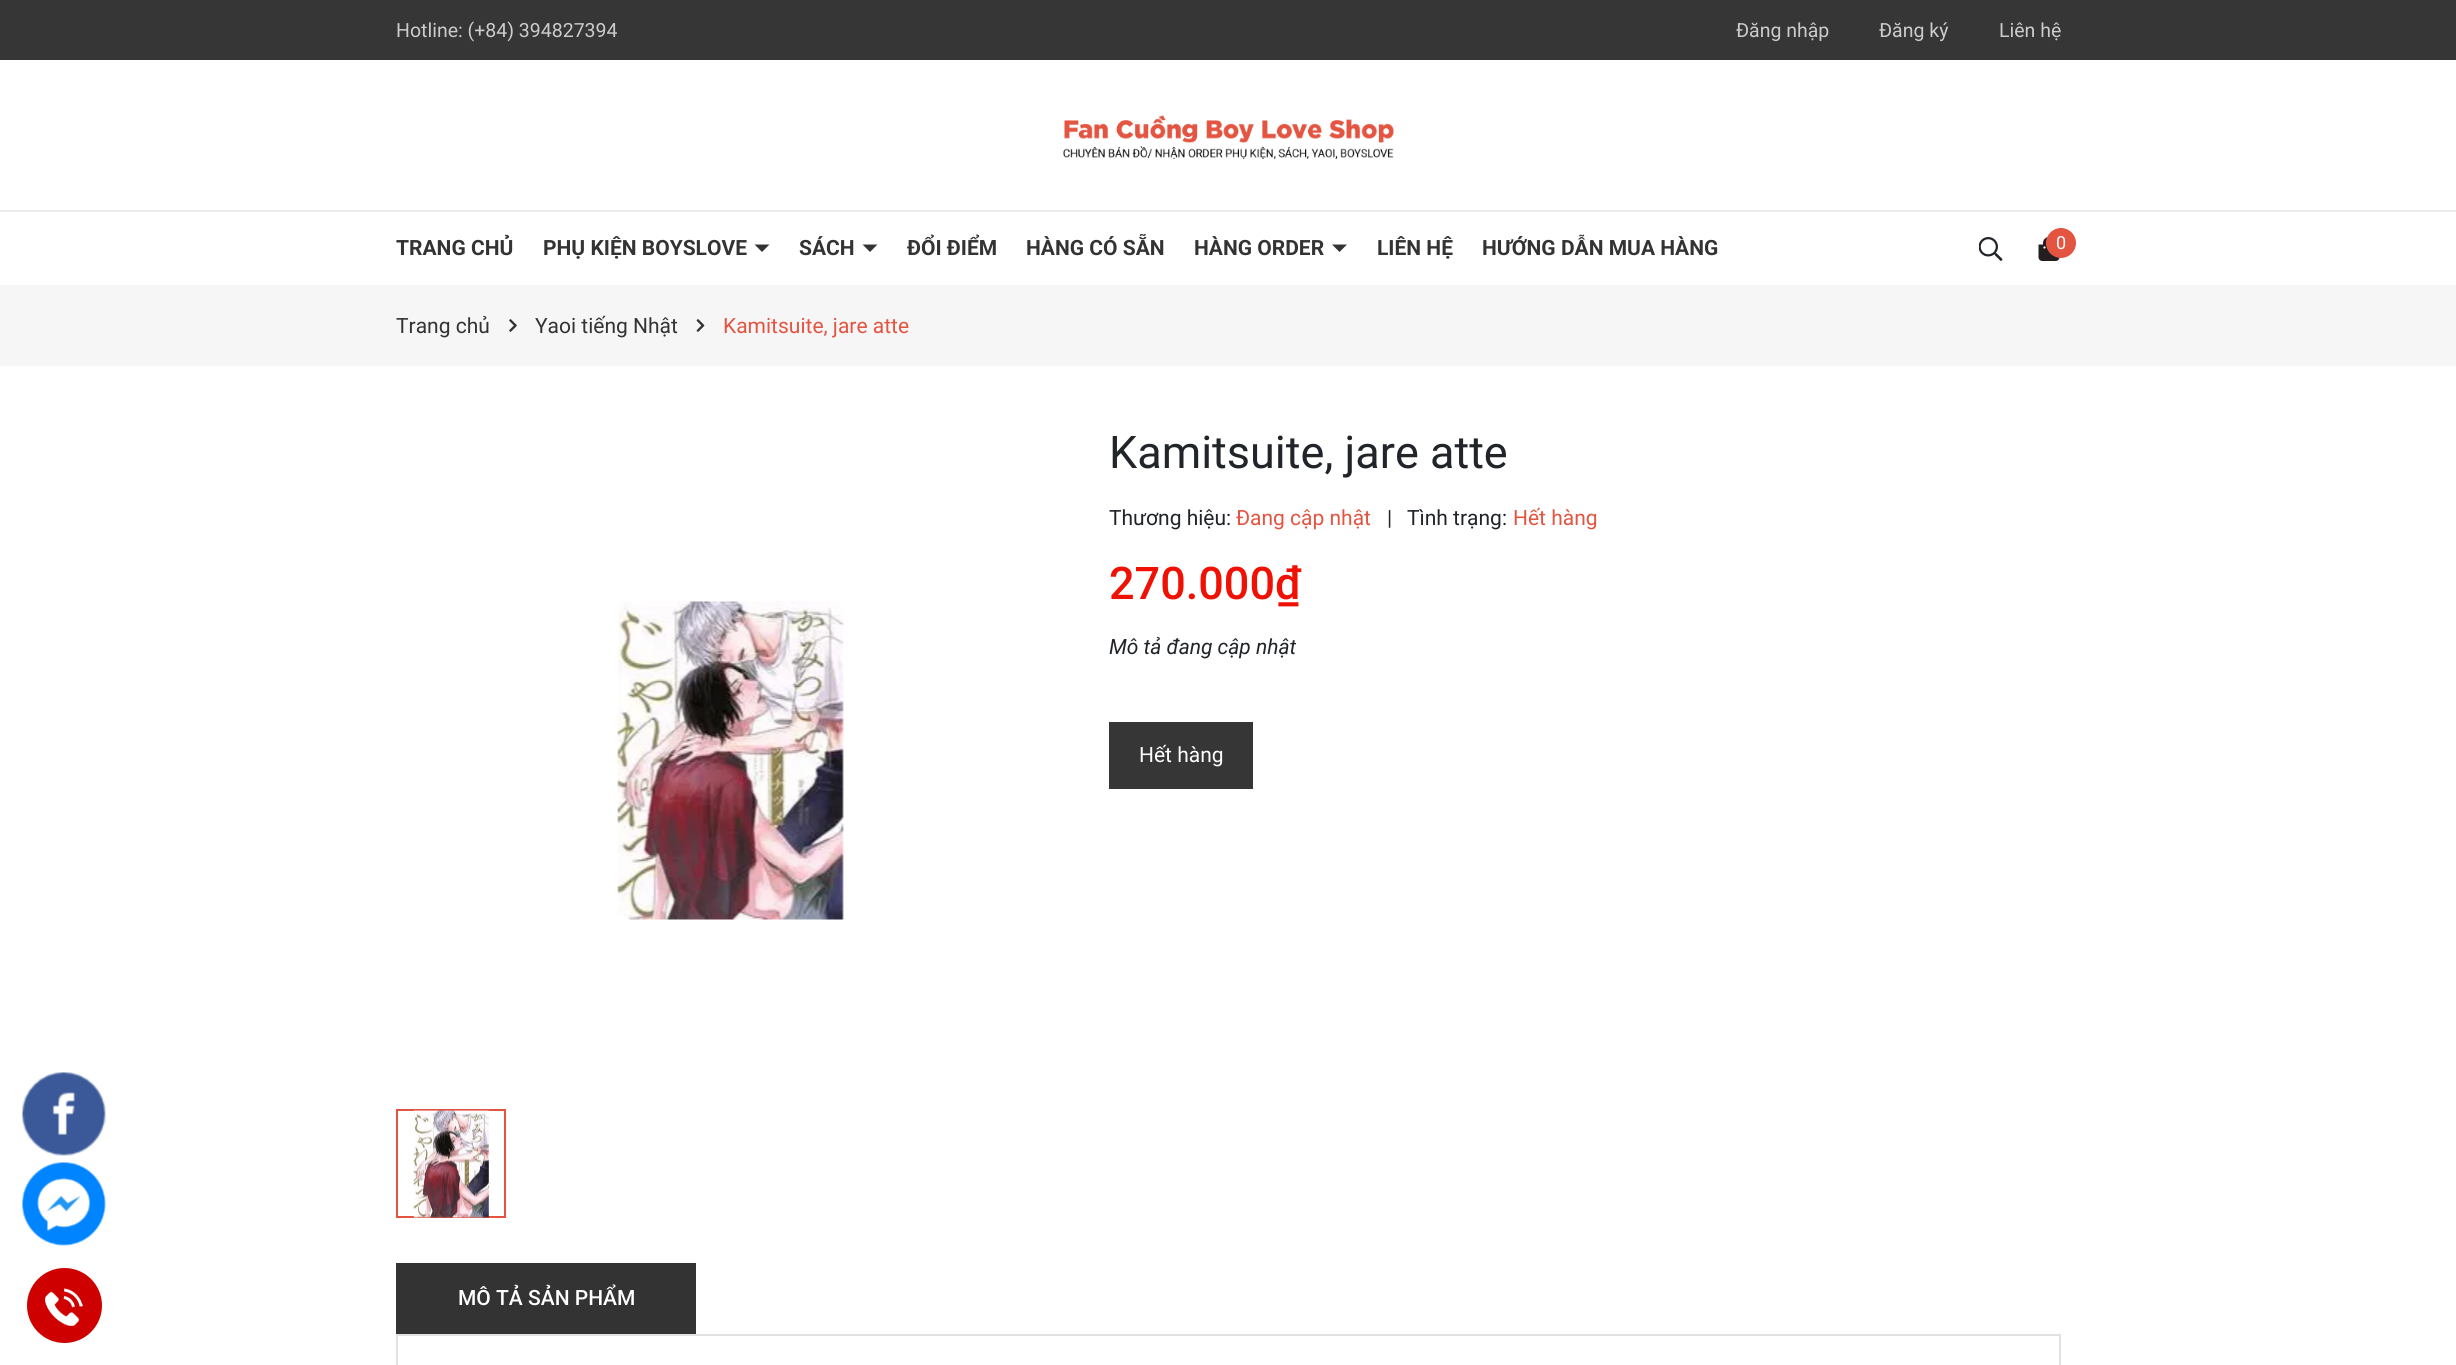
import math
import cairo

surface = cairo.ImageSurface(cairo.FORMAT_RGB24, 2456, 1365)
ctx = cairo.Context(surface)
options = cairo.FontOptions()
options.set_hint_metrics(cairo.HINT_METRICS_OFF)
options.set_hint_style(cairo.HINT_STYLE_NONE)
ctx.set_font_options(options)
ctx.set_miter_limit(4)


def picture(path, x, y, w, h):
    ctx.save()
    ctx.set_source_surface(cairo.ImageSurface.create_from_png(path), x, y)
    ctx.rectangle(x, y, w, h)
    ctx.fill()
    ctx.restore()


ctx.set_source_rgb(1, 1, 1)
ctx.paint()
ctx.set_source_rgb(0.212, 0.212, 0.212)
ctx.rectangle(0, 0, 2456, 60)
ctx.fill()
ctx.select_font_face("Roboto")
ctx.set_font_size(19.5)
ctx.set_source_rgb(0.8, 0.8, 0.8)
ctx.move_to(396, 37)
ctx.show_text("Hotline: (+84) 394827394")
ctx.move_to(1736, 37)
ctx.show_text("Đăng nhập")
ctx.move_to(1879, 37)
ctx.show_text("Đăng ký")
ctx.move_to(1999, 37)
ctx.show_text("Liên hệ")
picture("img1.png", 1063, 115, 331, 44)
ctx.set_source_rgb(0.922, 0.922, 0.922)
ctx.rectangle(0, 210, 2456, 2)
ctx.fill()
ctx.select_font_face("Roboto", cairo.FONT_SLANT_NORMAL, cairo.FONT_WEIGHT_BOLD)
ctx.set_font_size(21)
ctx.set_source_rgb(0.2, 0.2, 0.2)
ctx.move_to(396, 255)
ctx.show_text("TRANG CHỦ")
ctx.move_to(543, 255)
ctx.show_text("PHỤ KIỆN BOYSLOVE")
ctx.new_path()
ctx.move_to(754.5, 244.5)
ctx.line_to(769.5, 244.5)
ctx.line_to(762, 252)
ctx.close_path()
ctx.fill()
ctx.move_to(799, 255)
ctx.show_text("SÁCH")
ctx.new_path()
ctx.move_to(862.5, 244.5)
ctx.line_to(877.5, 244.5)
ctx.line_to(870, 252)
ctx.close_path()
ctx.fill()
ctx.move_to(907, 255)
ctx.show_text("ĐỔI ĐIỂM")
ctx.move_to(1026, 255)
ctx.show_text("HÀNG CÓ SẴN")
ctx.move_to(1194, 255)
ctx.show_text("HÀNG ORDER")
ctx.new_path()
ctx.move_to(1332, 244.5)
ctx.line_to(1347, 244.5)
ctx.line_to(1339.5, 252)
ctx.close_path()
ctx.fill()
ctx.move_to(1377, 255)
ctx.show_text("LIÊN HỆ")
ctx.move_to(1482, 255)
ctx.show_text("HƯỚNG DẪN MUA HÀNG")
picture("img2.png", 1979, 237, 24, 24)
picture("img3.png", 2038, 237, 22, 24)
ctx.set_source_rgb(0.89, 0.329, 0.255)
ctx.arc(2061, 243, 15, 0, 2 * math.pi)
ctx.fill()
ctx.select_font_face("Roboto")
ctx.set_font_size(18)
ctx.set_source_rgb(1, 1, 1)
ctx.move_to(2056, 249)
ctx.show_text("0")
ctx.set_source_rgb(0.961, 0.961, 0.961)
ctx.rectangle(0, 285, 2456, 81)
ctx.fill()
ctx.set_font_size(21)
ctx.set_source_rgb(0.2, 0.2, 0.2)
ctx.move_to(396, 333)
ctx.show_text("Trang chủ")
picture("img4.png", 509, 319, 8, 13)
ctx.move_to(535, 333)
ctx.show_text("Yaoi tiếng Nhật")
picture("img5.png", 696, 319, 9, 13)
ctx.set_source_rgb(0.89, 0.329, 0.255)
ctx.move_to(723, 333)
ctx.show_text("Kamitsuite, jare atte")
picture("img6.png", 22, 1072, 84, 84)
picture("img7.png", 22, 1162, 84, 84)
ctx.set_source_rgb(0.808, 0, 0)
ctx.arc(64.5, 1305.5, 37.5, 0, 2 * math.pi)
ctx.fill()
picture("img8.png", 45, 1288, 38, 38)
picture("img9.png", 617, 601, 227, 319)
ctx.rectangle(397, 1110, 108, 107)
ctx.set_source_rgb(0.89, 0.329, 0.255)
ctx.stroke()
picture("img10.png", 413, 1110, 76, 108)
ctx.set_font_size(45)
ctx.set_source_rgb(0.129, 0.145, 0.161)
ctx.move_to(1109, 468)
ctx.show_text("Kamitsuite, jare atte")
ctx.set_font_size(21)
ctx.move_to(1109, 525)
ctx.show_text("Thương hiệu:")
ctx.set_source_rgb(0.89, 0.329, 0.255)
ctx.move_to(1236, 525)
ctx.show_text("Đang cập nhật")
ctx.set_source_rgb(0.129, 0.145, 0.161)
ctx.move_to(1387, 525)
ctx.show_text("|")
ctx.move_to(1407, 525)
ctx.show_text("Tình trạng:")
ctx.set_source_rgb(0.89, 0.329, 0.255)
ctx.move_to(1513, 525)
ctx.show_text("Hết hàng")
ctx.select_font_face("Roboto Medium")
ctx.set_font_size(45)
ctx.set_source_rgb(0.937, 0.067, 0.016)
ctx.move_to(1109, 599)
ctx.show_text("270.000₫")
ctx.select_font_face("Roboto", cairo.FONT_SLANT_ITALIC)
ctx.set_font_size(21)
ctx.set_source_rgb(0.129, 0.145, 0.161)
ctx.move_to(1109, 654)
ctx.show_text("Mô tả đang cập nhật")
ctx.set_source_rgb(0.212, 0.212, 0.212)
ctx.rectangle(1109, 722, 144, 67)
ctx.fill()
ctx.select_font_face("Roboto")
ctx.set_source_rgb(1, 1, 1)
ctx.move_to(1139, 762)
ctx.show_text("Hết hàng")
ctx.set_source_rgb(0.2, 0.2, 0.2)
ctx.rectangle(396, 1263, 300, 71)
ctx.fill()
ctx.select_font_face("Roboto Medium")
ctx.set_source_rgb(1, 1, 1)
ctx.move_to(458, 1305)
ctx.show_text("MÔ TẢ SẢN PHẨM")
ctx.rectangle(397, 1335, 1663, 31)
ctx.set_source_rgb(0.882, 0.882, 0.882)
ctx.stroke()
surface.write_to_png("page.png")
